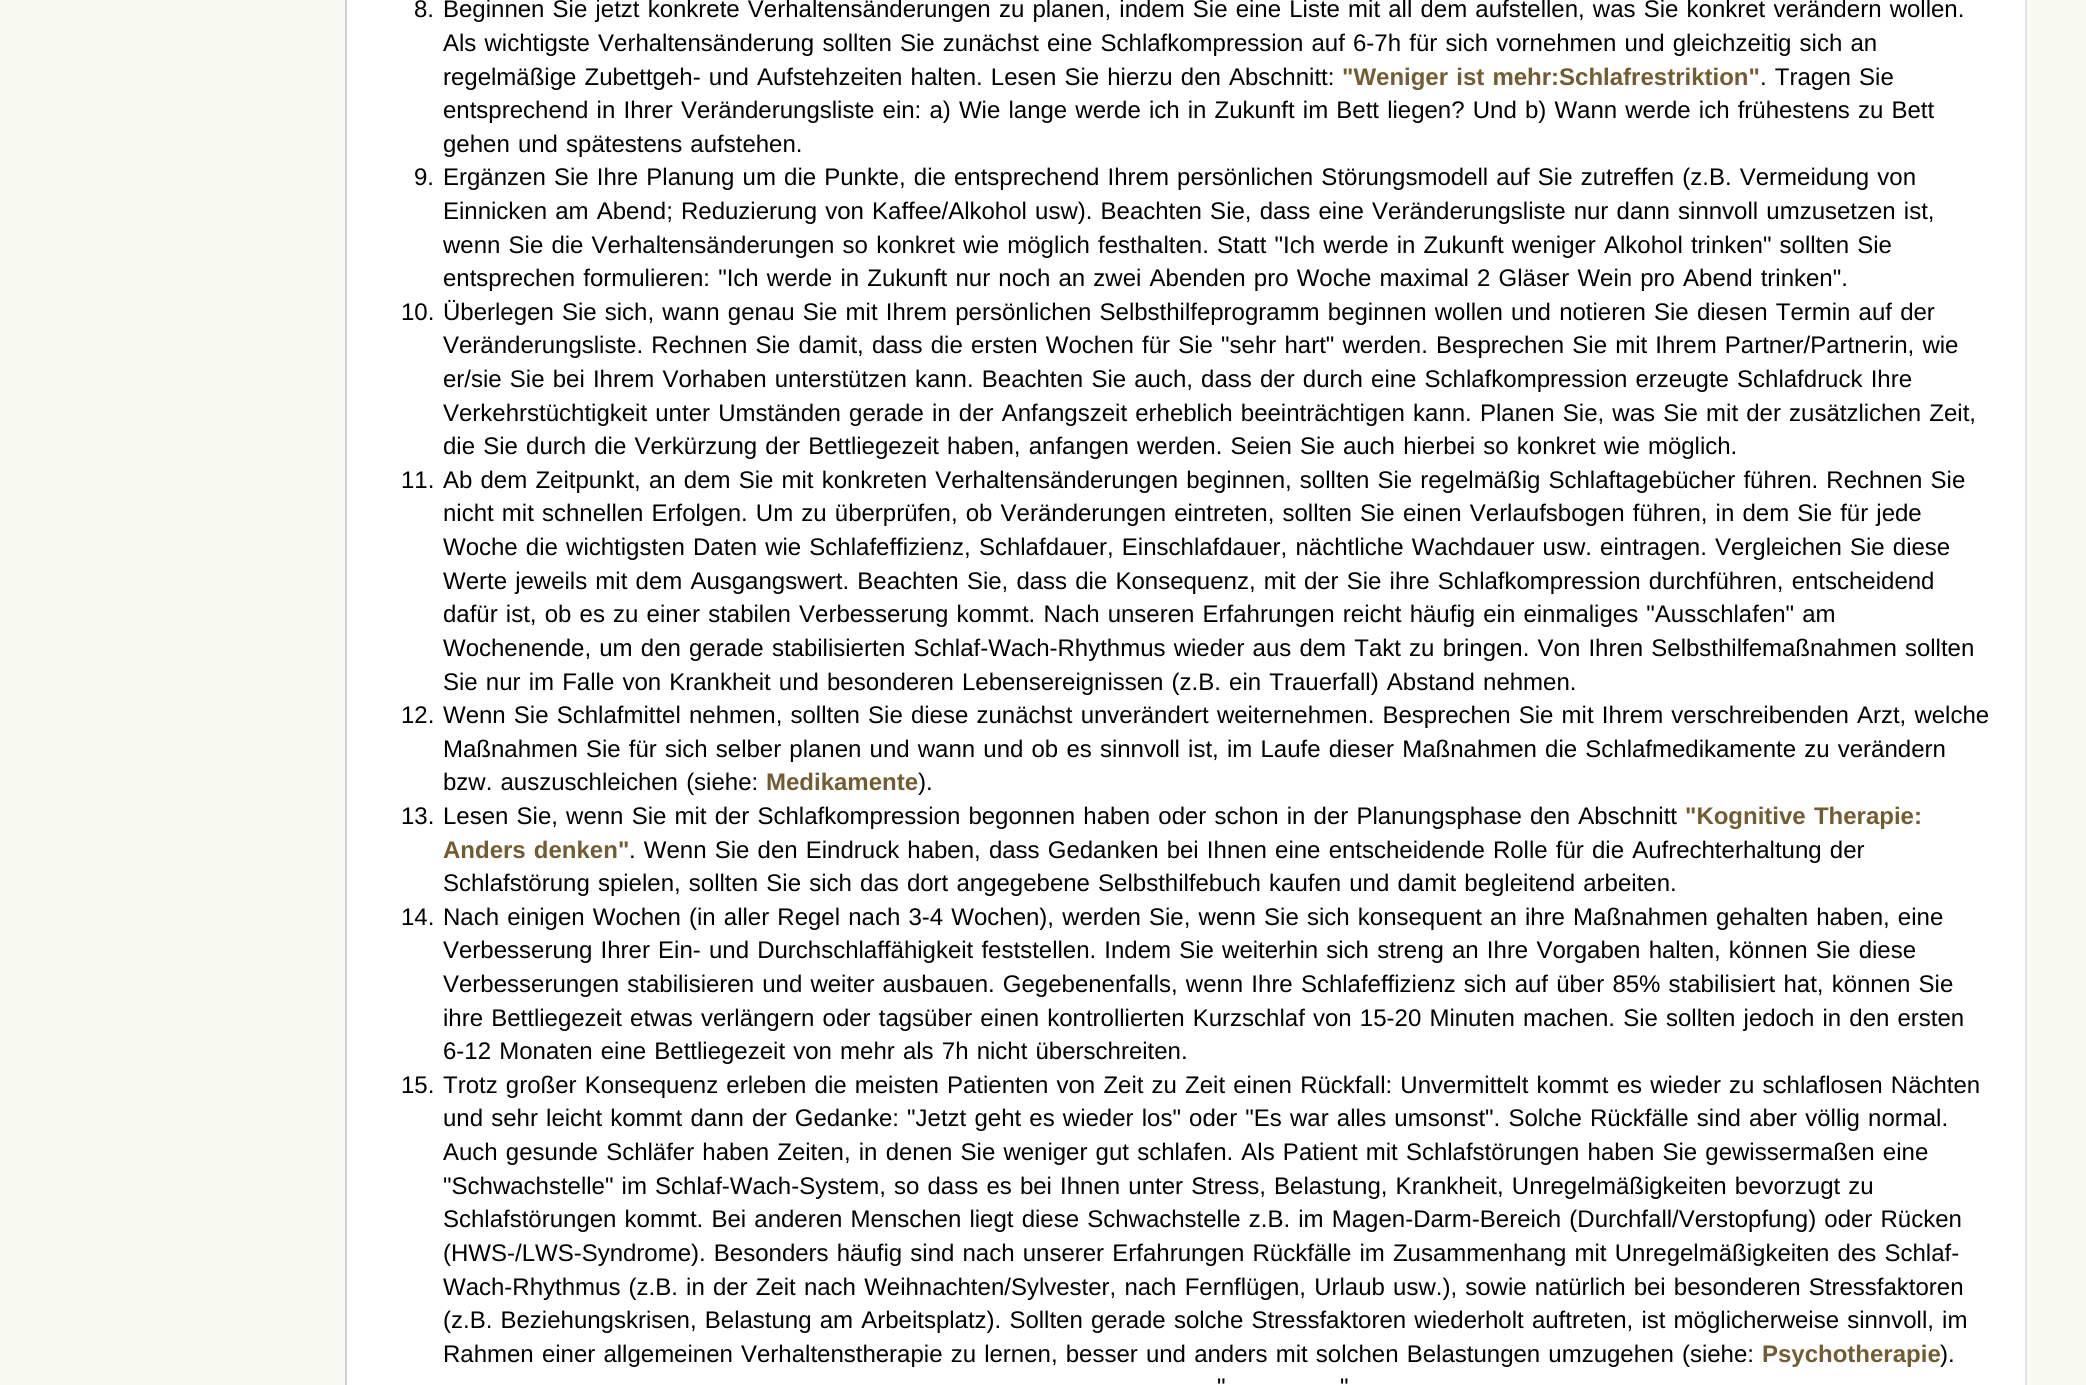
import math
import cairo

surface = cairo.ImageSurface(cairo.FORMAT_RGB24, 2086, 1385)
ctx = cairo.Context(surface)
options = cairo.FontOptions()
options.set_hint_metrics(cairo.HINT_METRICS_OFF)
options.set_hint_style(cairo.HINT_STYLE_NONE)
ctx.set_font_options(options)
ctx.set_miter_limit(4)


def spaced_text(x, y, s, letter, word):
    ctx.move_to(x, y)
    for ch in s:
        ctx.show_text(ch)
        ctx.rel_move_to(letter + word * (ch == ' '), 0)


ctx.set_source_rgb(0.969, 0.973, 0.941)
ctx.paint()
ctx.set_source_rgb(1, 1, 1)
ctx.rectangle(347, 0, 1678, 1385)
ctx.fill()
ctx.set_source_rgb(0.863, 0.878, 0.918)
ctx.rectangle(2025, 0, 2, 1385)
ctx.fill()
ctx.set_source_rgb(0.812, 0.82, 0.843)
ctx.rectangle(345, 0, 2, 1385)
ctx.fill()
ctx.select_font_face("Liberation Sans")
ctx.set_font_size(24)
ctx.set_source_rgb(0, 0, 0)
ctx.move_to(414, 17)
ctx.show_text("8.")
spaced_text(443, 17, "Beginnen Sie jetzt konkrete Verhaltensänderungen zu planen, indem Sie eine Liste mit all dem aufstellen, was Sie konkret verändern wollen.", 0, 1.5)
spaced_text(443, 51, "Als wichtigste Verhaltensänderung sollten Sie zunächst eine Schlafkompression auf 6-7h für sich vornehmen und gleichzeitig sich an", 0, 1.5)
spaced_text(443, 85, "regelmäßige Zubettgeh- und Aufstehzeiten halten. Lesen Sie hierzu den Abschnitt:", 0, 1.5)
ctx.select_font_face("Liberation Sans", cairo.FONT_SLANT_NORMAL, cairo.FONT_WEIGHT_BOLD)
ctx.set_source_rgb(0.455, 0.361, 0.196)
spaced_text(1342, 85, "\"Weniger ist mehr:Schlafrestriktion\"", 0, 1.5)
ctx.select_font_face("Liberation Sans")
ctx.set_source_rgb(0, 0, 0)
spaced_text(1760, 85, ". Tragen Sie", 0, 1.5)
spaced_text(443, 118, "entsprechend in Ihrer Veränderungsliste ein: a) Wie lange werde ich in Zukunft im Bett liegen? Und b) Wann werde ich frühestens zu Bett", 0, 1.5)
spaced_text(443, 152, "gehen und spätestens aufstehen.", 0, 1.5)
ctx.move_to(414, 185)
ctx.show_text("9.")
spaced_text(443, 185, "Ergänzen Sie Ihre Planung um die Punkte, die entsprechend Ihrem persönlichen Störungsmodell auf Sie zutreffen (z.B. Vermeidung von", 0, 1.5)
spaced_text(443, 219, "Einnicken am Abend; Reduzierung von Kaffee/Alkohol usw). Beachten Sie, dass eine Veränderungsliste nur dann sinnvoll umzusetzen ist,", 0, 1.5)
spaced_text(443, 253, "wenn Sie die Verhaltensänderungen so konkret wie möglich festhalten. Statt \"Ich werde in Zukunft weniger Alkohol trinken\" sollten Sie", 0, 1.5)
spaced_text(443, 286, "entsprechen formulieren: \"Ich werde in Zukunft nur noch an zwei Abenden pro Woche maximal 2 Gläser Wein pro Abend trinken\".", 0, 1.5)
ctx.move_to(401, 320)
ctx.show_text("10.")
spaced_text(443, 320, "Überlegen Sie sich, wann genau Sie mit Ihrem persönlichen Selbsthilfeprogramm beginnen wollen und notieren Sie diesen Termin auf der", 0, 1.5)
spaced_text(443, 353, "Veränderungsliste. Rechnen Sie damit, dass die ersten Wochen für Sie \"sehr hart\" werden. Besprechen Sie mit Ihrem Partner/Partnerin, wie", 0, 1.5)
spaced_text(443, 387, "er/sie Sie bei Ihrem Vorhaben unterstützen kann. Beachten Sie auch, dass der durch eine Schlafkompression erzeugte Schlafdruck Ihre", 0, 1.5)
spaced_text(443, 421, "Verkehrstüchtigkeit unter Umständen gerade in der Anfangszeit erheblich beeinträchtigen kann. Planen Sie, was Sie mit der zusätzlichen Zeit,", 0, 1.5)
spaced_text(443, 454, "die Sie durch die Verkürzung der Bettliegezeit haben, anfangen werden. Seien Sie auch hierbei so konkret wie möglich.", 0, 1.5)
ctx.move_to(401, 488)
ctx.show_text("11.")
spaced_text(443, 488, "Ab dem Zeitpunkt, an dem Sie mit konkreten Verhaltensänderungen beginnen, sollten Sie regelmäßig Schlaftagebücher führen. Rechnen Sie", 0, 1.5)
spaced_text(443, 521, "nicht mit schnellen Erfolgen. Um zu überprüfen, ob Veränderungen eintreten, sollten Sie einen Verlaufsbogen führen, in dem Sie für jede", 0, 1.5)
spaced_text(443, 555, "Woche die wichtigsten Daten wie Schlafeffizienz, Schlafdauer, Einschlafdauer, nächtliche Wachdauer usw. eintragen. Vergleichen Sie diese", 0, 1.5)
spaced_text(443, 589, "Werte jeweils mit dem Ausgangswert. Beachten Sie, dass die Konsequenz, mit der Sie ihre Schlafkompression durchführen, entscheidend", 0, 1.5)
spaced_text(443, 622, "dafür ist, ob es zu einer stabilen Verbesserung kommt. Nach unseren Erfahrungen reicht häufig ein einmaliges \"Ausschlafen\" am", 0, 1.5)
spaced_text(443, 656, "Wochenende, um den gerade stabilisierten Schlaf-Wach-Rhythmus wieder aus dem Takt zu bringen. Von Ihren Selbsthilfemaßnahmen sollten", 0, 1.5)
spaced_text(443, 690, "Sie nur im Falle von Krankheit und besonderen Lebensereignissen (z.B. ein Trauerfall) Abstand nehmen.", 0, 1.5)
ctx.move_to(401, 723)
ctx.show_text("12.")
spaced_text(443, 723, "Wenn Sie Schlafmittel nehmen, sollten Sie diese zunächst unverändert weiternehmen. Besprechen Sie mit Ihrem verschreibenden Arzt, welche", 0, 1.5)
spaced_text(443, 757, "Maßnahmen Sie für sich selber planen und wann und ob es sinnvoll ist, im Laufe dieser Maßnahmen die Schlafmedikamente zu verändern", 0, 1.5)
spaced_text(443, 790, "bzw. auszuschleichen (siehe:", 0, 1.5)
ctx.select_font_face("Liberation Sans", cairo.FONT_SLANT_NORMAL, cairo.FONT_WEIGHT_BOLD)
ctx.set_source_rgb(0.455, 0.361, 0.196)
ctx.move_to(766, 790)
ctx.show_text("Medikamente")
ctx.select_font_face("Liberation Sans")
ctx.set_source_rgb(0, 0, 0)
ctx.move_to(918, 790)
ctx.show_text(").")
ctx.move_to(401, 824)
ctx.show_text("13.")
spaced_text(443, 824, "Lesen Sie, wenn Sie mit der Schlafkompression begonnen haben oder schon in der Planungsphase den Abschnitt", 0, 1.5)
ctx.select_font_face("Liberation Sans", cairo.FONT_SLANT_NORMAL, cairo.FONT_WEIGHT_BOLD)
ctx.set_source_rgb(0.455, 0.361, 0.196)
spaced_text(1685, 824, "\"Kognitive Therapie:", 0, 1.5)
spaced_text(443, 858, "Anders denken\"", 0, 1.5)
ctx.select_font_face("Liberation Sans")
ctx.set_source_rgb(0, 0, 0)
spaced_text(629, 858, ". Wenn Sie den Eindruck haben, dass Gedanken bei Ihnen eine entscheidende Rolle für die Aufrechterhaltung der", 0, 1.5)
spaced_text(443, 891, "Schlafstörung spielen, sollten Sie sich das dort angegebene Selbsthilfebuch kaufen und damit begleitend arbeiten.", 0, 1.5)
ctx.move_to(401, 925)
ctx.show_text("14.")
spaced_text(443, 925, "Nach einigen Wochen (in aller Regel nach 3-4 Wochen), werden Sie, wenn Sie sich konsequent an ihre Maßnahmen gehalten haben, eine", 0, 1.5)
spaced_text(443, 958, "Verbesserung Ihrer Ein- und Durchschlaffähigkeit feststellen. Indem Sie weiterhin sich streng an Ihre Vorgaben halten, können Sie diese", 0, 1.5)
spaced_text(443, 992, "Verbesserungen stabilisieren und weiter ausbauen. Gegebenenfalls, wenn Ihre Schlafeffizienz sich auf über 85% stabilisiert hat, können Sie", 0, 1.5)
spaced_text(443, 1026, "ihre Bettliegezeit etwas verlängern oder tagsüber einen kontrollierten Kurzschlaf von 15-20 Minuten machen. Sie sollten jedoch in den ersten", 0, 1.5)
spaced_text(443, 1059, "6-12 Monaten eine Bettliegezeit von mehr als 7h nicht überschreiten.", 0, 1.5)
ctx.move_to(401, 1093)
ctx.show_text("15.")
spaced_text(443, 1093, "Trotz großer Konsequenz erleben die meisten Patienten von Zeit zu Zeit einen Rückfall: Unvermittelt kommt es wieder zu schlaflosen Nächten", 0, 1.5)
spaced_text(443, 1126, "und sehr leicht kommt dann der Gedanke: \"Jetzt geht es wieder los\" oder \"Es war alles umsonst\". Solche Rückfälle sind aber völlig normal.", 0, 1.5)
spaced_text(443, 1160, "Auch gesunde Schläfer haben Zeiten, in denen Sie weniger gut schlafen. Als Patient mit Schlafstörungen haben Sie gewissermaßen eine", 0, 1.5)
spaced_text(443, 1194, "\"Schwachstelle\" im Schlaf-Wach-System, so dass es bei Ihnen unter Stress, Belastung, Krankheit, Unregelmäßigkeiten bevorzugt zu", 0, 1.5)
spaced_text(443, 1227, "Schlafstörungen kommt. Bei anderen Menschen liegt diese Schwachstelle z.B. im Magen-Darm-Bereich (Durchfall/Verstopfung) oder Rücken", 0, 1.5)
spaced_text(443, 1261, "(HWS-/LWS-Syndrome). Besonders häufig sind nach unserer Erfahrungen Rückfälle im Zusammenhang mit Unregelmäßigkeiten des Schlaf-", 0, 1.5)
spaced_text(443, 1295, "Wach-Rhythmus (z.B. in der Zeit nach Weihnachten/Sylvester, nach Fernflügen, Urlaub usw.), sowie natürlich bei besonderen Stressfaktoren", 0, 1.5)
spaced_text(443, 1328, "(z.B. Beziehungskrisen, Belastung am Arbeitsplatz). Sollten gerade solche Stressfaktoren wiederholt auftreten, ist möglicherweise sinnvoll, im", 0, 1.5)
spaced_text(443, 1362, "Rahmen einer allgemeinen Verhaltenstherapie zu lernen, besser und anders mit solchen Belastungen umzugehen (siehe:", 0, 1.5)
ctx.select_font_face("Liberation Sans", cairo.FONT_SLANT_NORMAL, cairo.FONT_WEIGHT_BOLD)
ctx.set_source_rgb(0.455, 0.361, 0.196)
ctx.move_to(1762, 1362)
ctx.show_text("Psychotherapie")
ctx.select_font_face("Liberation Sans")
ctx.set_source_rgb(0, 0, 0)
ctx.move_to(1940, 1362)
ctx.show_text(").")
spaced_text(1217, 1395, "\"", 0, 1.5)
spaced_text(1340, 1395, "\"", 0, 1.5)
surface.write_to_png("page.png")
